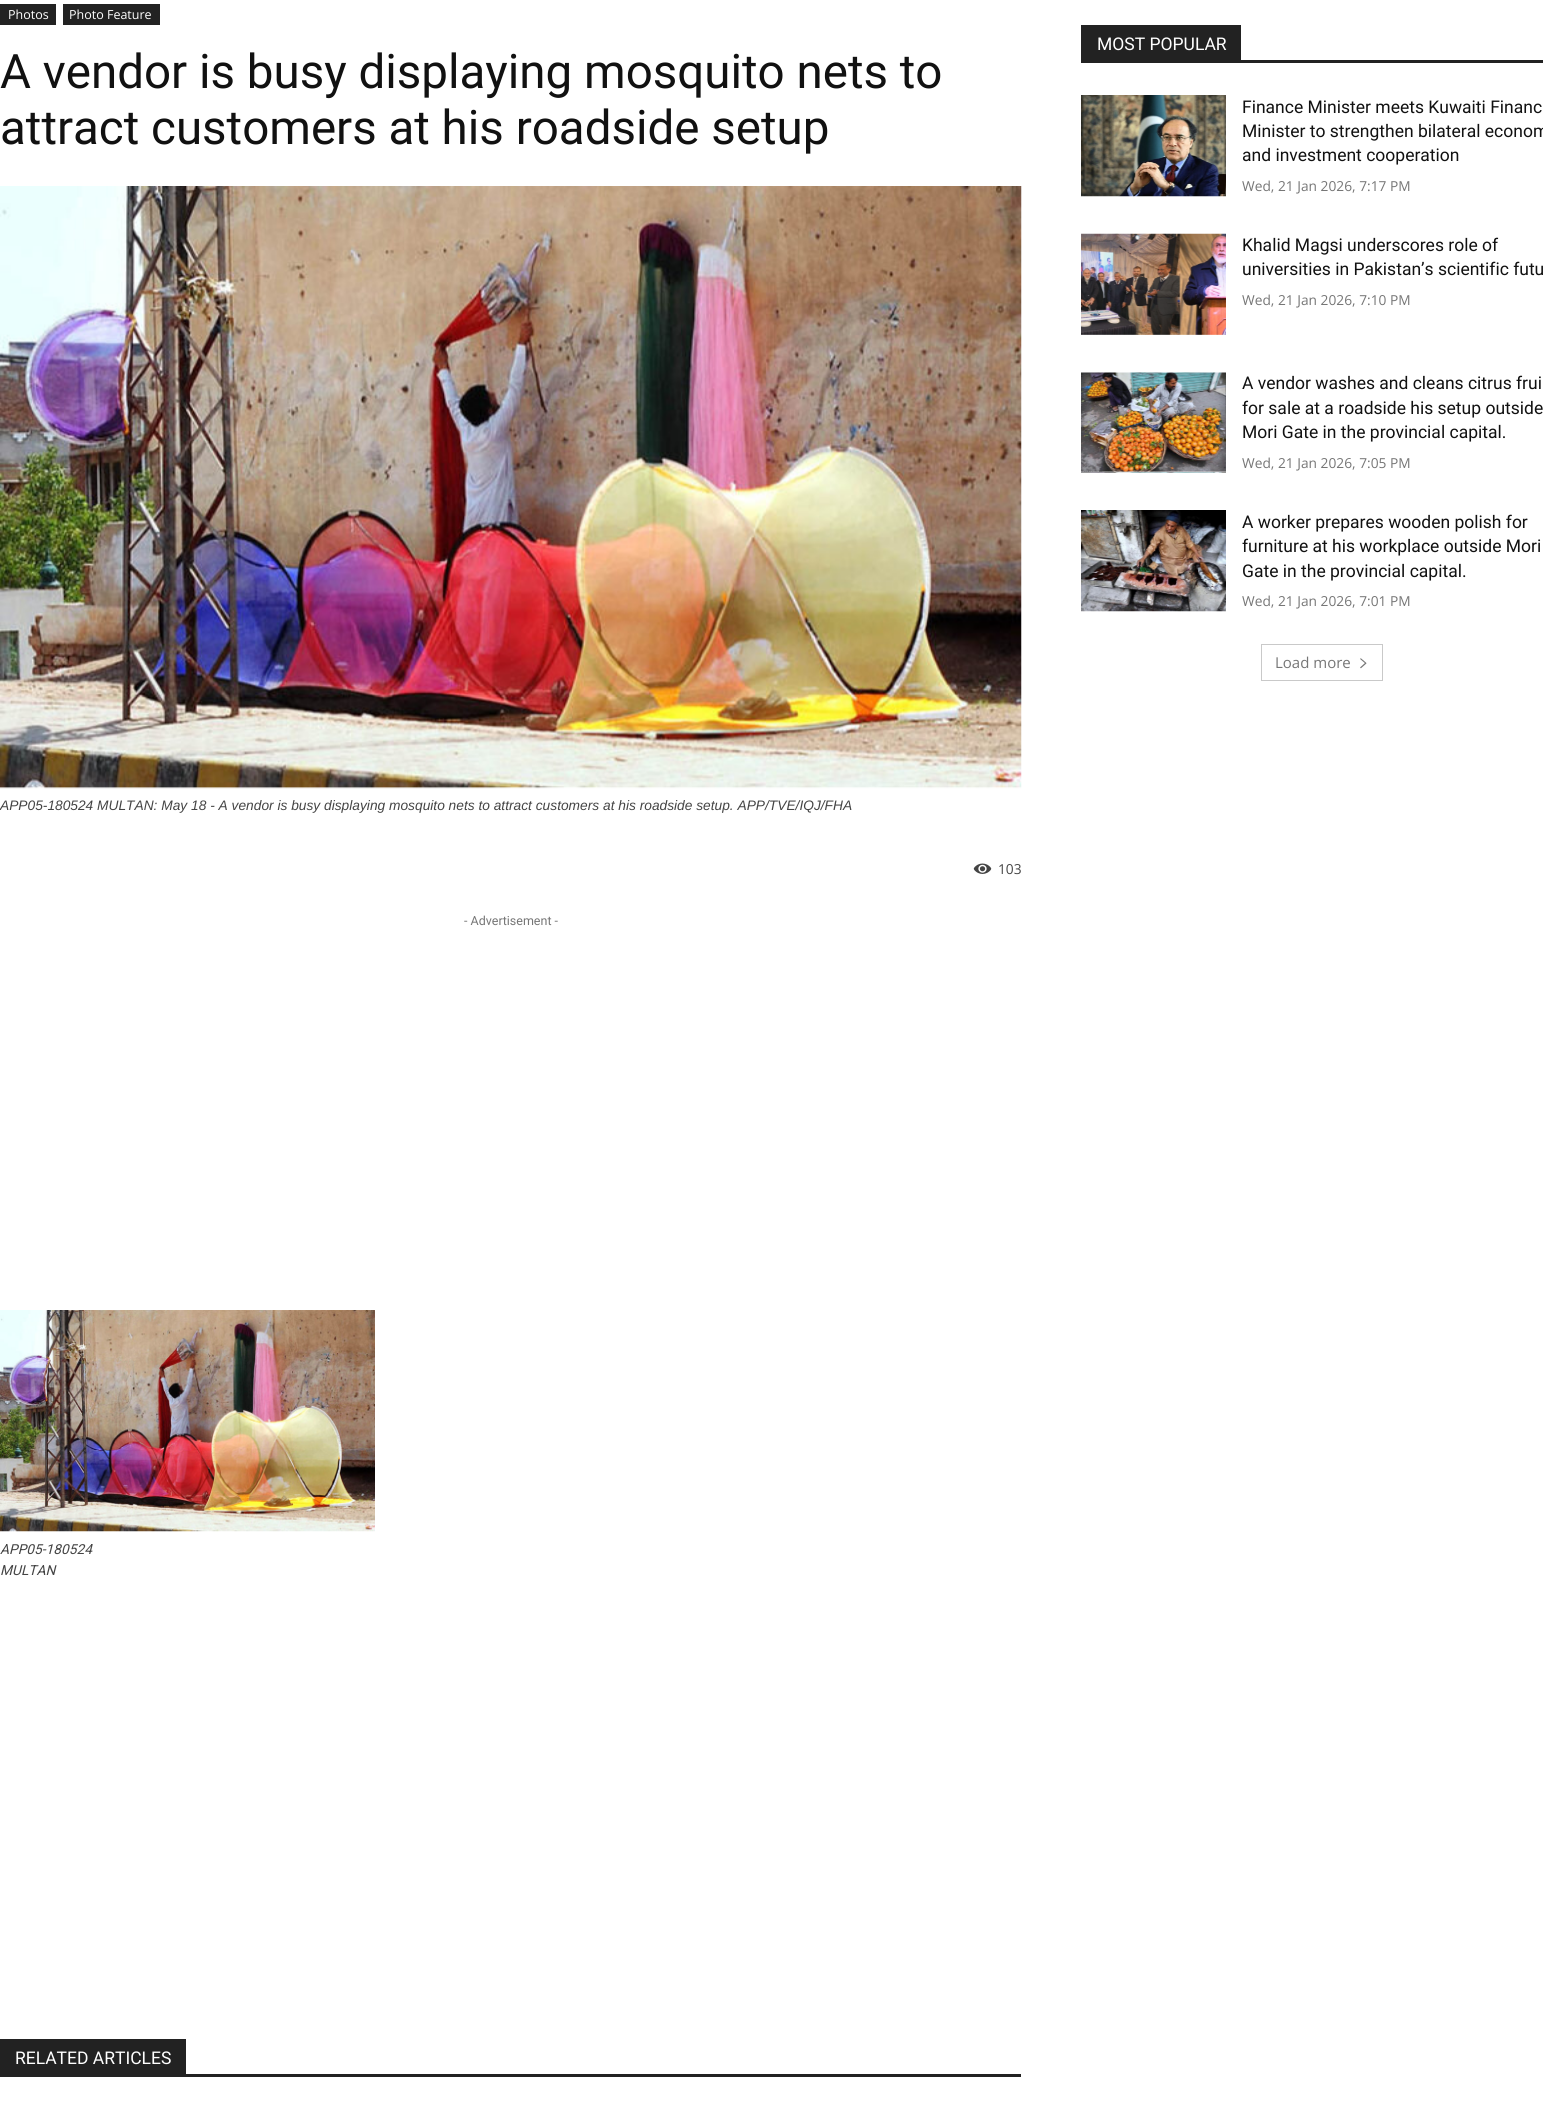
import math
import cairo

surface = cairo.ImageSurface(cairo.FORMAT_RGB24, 1543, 2123)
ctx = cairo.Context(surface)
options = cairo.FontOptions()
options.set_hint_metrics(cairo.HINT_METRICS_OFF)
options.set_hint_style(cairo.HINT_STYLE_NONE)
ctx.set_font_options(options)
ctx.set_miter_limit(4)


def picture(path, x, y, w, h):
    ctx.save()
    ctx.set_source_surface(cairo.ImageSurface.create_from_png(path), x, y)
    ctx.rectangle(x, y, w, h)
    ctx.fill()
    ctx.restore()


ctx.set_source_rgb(1, 1, 1)
ctx.paint()
ctx.set_source_rgb(0.133, 0.133, 0.133)
ctx.rectangle(0, 4, 56, 21)
ctx.fill()
ctx.select_font_face("Open Sans")
ctx.set_font_size(12.5)
ctx.set_source_rgb(1, 1, 1)
ctx.move_to(8, 19)
ctx.show_text("Photos")
ctx.set_source_rgb(0.133, 0.133, 0.133)
ctx.rectangle(63, 4, 97, 21)
ctx.fill()
ctx.set_source_rgb(1, 1, 1)
ctx.move_to(69, 19)
ctx.show_text("Photo Feature")
ctx.select_font_face("Roboto")
ctx.set_font_size(47.5)
ctx.set_source_rgb(0.067, 0.067, 0.067)
ctx.move_to(0, 88)
ctx.show_text("A vendor is busy displaying mosquito nets to")
ctx.move_to(0, 144)
ctx.show_text("attract customers at his roadside setup")
picture("img1.png", 0, 186, 1022, 603)
ctx.select_font_face("Liberation Sans", cairo.FONT_SLANT_ITALIC)
ctx.set_font_size(13.75)
ctx.set_source_rgb(0.267, 0.267, 0.267)
ctx.move_to(0, 810)
ctx.show_text("APP05-180524 MULTAN: May 18 - A vendor is busy displaying mosquito nets to attract customers at his roadside setup. APP/TVE/IQJ/FHA")
picture("img2.png", 973, 863, 19, 11)
ctx.select_font_face("Open Sans")
ctx.move_to(998, 874)
ctx.show_text("103")
ctx.select_font_face("Roboto")
ctx.set_font_size(12.5)
ctx.set_source_rgb(0.463, 0.463, 0.463)
ctx.move_to(464, 925)
ctx.show_text("- Advertisement -")
picture("img3.png", 0, 1310, 375, 222)
ctx.select_font_face("Roboto", cairo.FONT_SLANT_ITALIC)
ctx.set_font_size(13.75)
ctx.set_source_rgb(0.267, 0.267, 0.267)
ctx.move_to(0, 1554)
ctx.show_text("APP05-180524")
ctx.move_to(0, 1575)
ctx.show_text("MULTAN")
ctx.set_source_rgb(0.133, 0.133, 0.133)
ctx.rectangle(0, 2074, 1021, 3)
ctx.fill()
ctx.rectangle(0, 2039, 186, 35)
ctx.fill()
ctx.select_font_face("Roboto")
ctx.set_font_size(17.5)
ctx.set_source_rgb(1, 1, 1)
ctx.move_to(15, 2064)
ctx.show_text("RELATED ARTICLES")
ctx.set_source_rgb(0.133, 0.133, 0.133)
ctx.rectangle(1081, 60, 462, 3)
ctx.fill()
ctx.rectangle(1081, 25, 160, 35)
ctx.fill()
ctx.set_source_rgb(1, 1, 1)
ctx.move_to(1097, 50)
ctx.show_text("MOST POPULAR")
picture("img4.png", 1081, 95, 145, 102)
ctx.set_source_rgb(0.067, 0.067, 0.067)
ctx.move_to(1242, 113)
ctx.show_text("Finance Minister meets Kuwaiti Financ")
ctx.move_to(1242, 137)
ctx.show_text("Minister to strengthen bilateral econom")
ctx.move_to(1242, 161)
ctx.show_text("and investment cooperation")
ctx.select_font_face("Open Sans")
ctx.set_font_size(13.75)
ctx.set_source_rgb(0.463, 0.463, 0.463)
ctx.move_to(1242, 191)
ctx.show_text("Wed, 21 Jan 2026, 7:17 PM")
picture("img5.png", 1081, 233, 145, 102)
ctx.select_font_face("Roboto")
ctx.set_font_size(17.5)
ctx.set_source_rgb(0.067, 0.067, 0.067)
ctx.move_to(1242, 251)
ctx.show_text("Khalid Magsi underscores role of")
ctx.move_to(1242, 275)
ctx.show_text("universities in Pakistan’s scientific futu")
ctx.select_font_face("Open Sans")
ctx.set_font_size(13.75)
ctx.set_source_rgb(0.463, 0.463, 0.463)
ctx.move_to(1242, 305)
ctx.show_text("Wed, 21 Jan 2026, 7:10 PM")
picture("img6.png", 1081, 372, 145, 101)
ctx.select_font_face("Roboto")
ctx.set_font_size(17.5)
ctx.set_source_rgb(0.067, 0.067, 0.067)
ctx.move_to(1242, 389)
ctx.show_text("A vendor washes and cleans citrus frui")
ctx.move_to(1242, 414)
ctx.show_text("for sale at a roadside his setup outside")
ctx.move_to(1242, 438)
ctx.show_text("Mori Gate in the provincial capital.")
ctx.select_font_face("Open Sans")
ctx.set_font_size(13.75)
ctx.set_source_rgb(0.463, 0.463, 0.463)
ctx.move_to(1242, 468)
ctx.show_text("Wed, 21 Jan 2026, 7:05 PM")
picture("img7.png", 1081, 510, 145, 102)
ctx.select_font_face("Roboto")
ctx.set_font_size(17.5)
ctx.set_source_rgb(0.067, 0.067, 0.067)
ctx.move_to(1242, 528)
ctx.show_text("A worker prepares wooden polish for")
ctx.move_to(1242, 552)
ctx.show_text("furniture at his workplace outside Mori")
ctx.move_to(1242, 577)
ctx.show_text("Gate in the provincial capital.")
ctx.select_font_face("Open Sans")
ctx.set_font_size(13.75)
ctx.set_source_rgb(0.463, 0.463, 0.463)
ctx.move_to(1242, 606)
ctx.show_text("Wed, 21 Jan 2026, 7:01 PM")
ctx.rectangle(1261.5, 644.5, 121, 36)
ctx.set_source_rgb(0.788, 0.788, 0.788)
ctx.set_line_width(1)
ctx.stroke()
ctx.set_font_size(15)
ctx.set_source_rgb(0.463, 0.463, 0.463)
ctx.move_to(1275, 668)
ctx.show_text("Load more")
picture("img8.png", 1360, 658, 7, 11)
surface.write_to_png("page.png")
